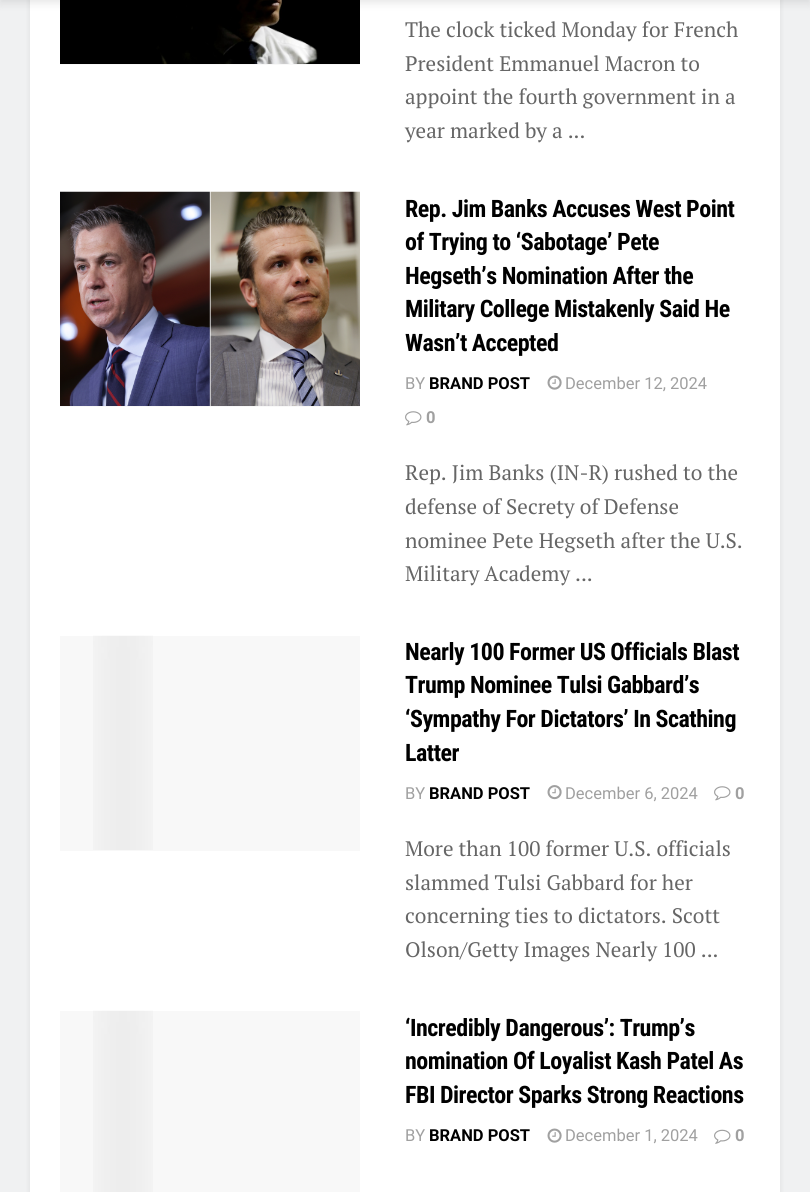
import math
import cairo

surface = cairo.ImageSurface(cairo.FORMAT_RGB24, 810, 1192)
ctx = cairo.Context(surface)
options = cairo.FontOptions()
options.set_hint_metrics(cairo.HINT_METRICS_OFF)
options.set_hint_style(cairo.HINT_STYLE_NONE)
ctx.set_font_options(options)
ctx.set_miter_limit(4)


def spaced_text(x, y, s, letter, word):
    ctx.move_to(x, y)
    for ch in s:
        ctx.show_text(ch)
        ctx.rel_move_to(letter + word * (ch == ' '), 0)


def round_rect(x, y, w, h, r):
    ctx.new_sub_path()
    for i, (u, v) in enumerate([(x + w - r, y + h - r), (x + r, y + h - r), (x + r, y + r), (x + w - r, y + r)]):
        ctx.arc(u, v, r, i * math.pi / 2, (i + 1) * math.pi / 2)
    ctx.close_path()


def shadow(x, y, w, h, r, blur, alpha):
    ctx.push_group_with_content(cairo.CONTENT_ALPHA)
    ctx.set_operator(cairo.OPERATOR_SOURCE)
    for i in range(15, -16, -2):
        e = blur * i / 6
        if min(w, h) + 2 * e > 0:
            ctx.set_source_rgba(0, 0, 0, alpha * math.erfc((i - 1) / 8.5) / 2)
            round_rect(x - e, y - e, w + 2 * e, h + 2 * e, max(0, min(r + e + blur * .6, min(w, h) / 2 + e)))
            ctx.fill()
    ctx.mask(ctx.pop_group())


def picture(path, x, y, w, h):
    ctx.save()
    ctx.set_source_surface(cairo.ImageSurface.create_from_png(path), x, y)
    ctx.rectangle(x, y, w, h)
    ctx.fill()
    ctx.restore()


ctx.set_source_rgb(0.941, 0.945, 0.949)
ctx.paint()
ctx.set_source_rgb(0, 0, 0)
shadow(30, -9, 750, 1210, 0, 3, 0.08)
ctx.set_source_rgb(1, 1, 1)
ctx.rectangle(30, 0, 750, 1192)
ctx.fill()
picture("img1.png", 60, 0, 300, 64)
ctx.set_source_rgb(0, 0, 0)
shadow(0, -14, 810, 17, 0, 4.5, 0.1)
ctx.set_source_rgb(0.969, 0.969, 0.969)
ctx.rectangle(60, 64, 300, 1)
ctx.fill()
ctx.select_font_face("PT Serif")
ctx.set_font_size(21)
ctx.set_source_rgb(0.4, 0.4, 0.4)
ctx.move_to(405, 37)
ctx.show_text("The clock ticked Monday for French")
ctx.move_to(405, 71)
ctx.show_text("President Emmanuel Macron to")
ctx.move_to(405, 104)
ctx.show_text("appoint the fourth government in a")
ctx.move_to(405, 138)
ctx.show_text("year marked by a ...")
ctx.set_source_rgb(0.969, 0.969, 0.969)
ctx.rectangle(60, 406, 300, 1)
ctx.fill()
picture("img3.png", 225, 191, 60, 1)
picture("img2.png", 60, 191, 300, 215)
ctx.select_font_face("Roboto Condensed", cairo.FONT_SLANT_NORMAL, cairo.FONT_WEIGHT_BOLD)
ctx.set_font_size(24)
ctx.set_source_rgb(0, 0, 0)
spaced_text(405, 217, "Rep. Jim Banks Accuses West Point", -0.5, 0)
spaced_text(405, 250, "of Trying to ‘Sabotage’ Pete", -0.5, 0)
spaced_text(405, 284, "Hegseth’s Nomination After the", -0.5, 0)
spaced_text(405, 317, "Military College Mistakenly Said He", -0.5, 0)
spaced_text(405, 351, "Wasn’t Accepted", -0.5, 0)
ctx.select_font_face("Roboto")
ctx.set_font_size(16.5)
ctx.set_source_rgb(0.627, 0.627, 0.627)
ctx.move_to(405, 389)
ctx.show_text("BY")
ctx.select_font_face("Roboto", cairo.FONT_SLANT_NORMAL, cairo.FONT_WEIGHT_BOLD)
ctx.set_source_rgb(0, 0, 0)
ctx.move_to(429, 389)
ctx.show_text("BRAND POST")
picture("img4.png", 547, 375, 15, 15)
ctx.select_font_face("Roboto")
ctx.set_source_rgb(0.627, 0.627, 0.627)
ctx.move_to(565, 389)
ctx.show_text("December 12, 2024")
picture("img5.png", 405, 411, 17, 15)
ctx.select_font_face("Roboto", cairo.FONT_SLANT_NORMAL, cairo.FONT_WEIGHT_BOLD)
ctx.move_to(426, 423)
ctx.show_text("0")
ctx.select_font_face("PT Serif")
ctx.set_font_size(21)
ctx.set_source_rgb(0.4, 0.4, 0.4)
ctx.move_to(405, 480)
ctx.show_text("Rep. Jim Banks (IN-R) rushed to the")
ctx.move_to(405, 514)
ctx.show_text("defense of Secrety of Defense")
ctx.move_to(405, 548)
ctx.show_text("nominee Pete Hegseth after the U.S.")
ctx.move_to(405, 581)
ctx.show_text("Military Academy ...")
ctx.set_source_rgb(0.969, 0.969, 0.969)
ctx.rectangle(60, 636, 300, 215)
ctx.fill()
picture("img6.png", 93, 635, 60, 215)
ctx.select_font_face("Roboto Condensed", cairo.FONT_SLANT_NORMAL, cairo.FONT_WEIGHT_BOLD)
ctx.set_font_size(24)
ctx.set_source_rgb(0, 0, 0)
spaced_text(405, 660, "Nearly 100 Former US Officials Blast", -0.5, 0)
spaced_text(405, 693, "Trump Nominee Tulsi Gabbard’s", -0.5, 0)
spaced_text(405, 727, "‘Sympathy For Dictators’ In Scathing", -0.5, 0)
spaced_text(405, 761, "Latter", -0.5, 0)
ctx.select_font_face("Roboto")
ctx.set_font_size(16.5)
ctx.set_source_rgb(0.627, 0.627, 0.627)
ctx.move_to(405, 799)
ctx.show_text("BY")
ctx.select_font_face("Roboto", cairo.FONT_SLANT_NORMAL, cairo.FONT_WEIGHT_BOLD)
ctx.set_source_rgb(0, 0, 0)
ctx.move_to(429, 799)
ctx.show_text("BRAND POST")
picture("img7.png", 547, 785, 15, 15)
ctx.select_font_face("Roboto")
ctx.set_source_rgb(0.627, 0.627, 0.627)
ctx.move_to(565, 799)
ctx.show_text("December 6, 2024")
picture("img5.png", 714, 786, 17, 15)
ctx.select_font_face("Roboto", cairo.FONT_SLANT_NORMAL, cairo.FONT_WEIGHT_BOLD)
ctx.move_to(735, 799)
ctx.show_text("0")
ctx.select_font_face("PT Serif")
ctx.set_font_size(21)
ctx.set_source_rgb(0.4, 0.4, 0.4)
ctx.move_to(405, 856)
ctx.show_text("More than 100 former U.S. officials")
ctx.move_to(405, 890)
ctx.show_text("slammed Tulsi Gabbard for her")
ctx.move_to(405, 923)
ctx.show_text("concerning ties to dictators. Scott")
ctx.move_to(405, 957)
ctx.show_text("Olson/Getty Images Nearly 100 ...")
ctx.set_source_rgb(0.969, 0.969, 0.969)
ctx.rectangle(60, 1011, 300, 181)
ctx.fill()
picture("img8.png", 93, 1010, 60, 182)
ctx.select_font_face("Roboto Condensed", cairo.FONT_SLANT_NORMAL, cairo.FONT_WEIGHT_BOLD)
ctx.set_font_size(24)
ctx.set_source_rgb(0, 0, 0)
spaced_text(405, 1036, "‘Incredibly Dangerous’: Trump’s", -0.5, 0)
spaced_text(405, 1069, "nomination Of Loyalist Kash Patel As", -0.5, 0)
spaced_text(405, 1103, "FBI Director Sparks Strong Reactions", -0.5, 0)
ctx.select_font_face("Roboto")
ctx.set_font_size(16.5)
ctx.set_source_rgb(0.627, 0.627, 0.627)
ctx.move_to(405, 1141)
ctx.show_text("BY")
ctx.select_font_face("Roboto", cairo.FONT_SLANT_NORMAL, cairo.FONT_WEIGHT_BOLD)
ctx.set_source_rgb(0, 0, 0)
ctx.move_to(429, 1141)
ctx.show_text("BRAND POST")
picture("img4.png", 547, 1128, 15, 15)
ctx.select_font_face("Roboto")
ctx.set_source_rgb(0.627, 0.627, 0.627)
ctx.move_to(565, 1141)
ctx.show_text("December 1, 2024")
picture("img9.png", 714, 1129, 17, 15)
ctx.select_font_face("Roboto", cairo.FONT_SLANT_NORMAL, cairo.FONT_WEIGHT_BOLD)
ctx.move_to(735, 1141)
ctx.show_text("0")
surface.write_to_png("page.png")
